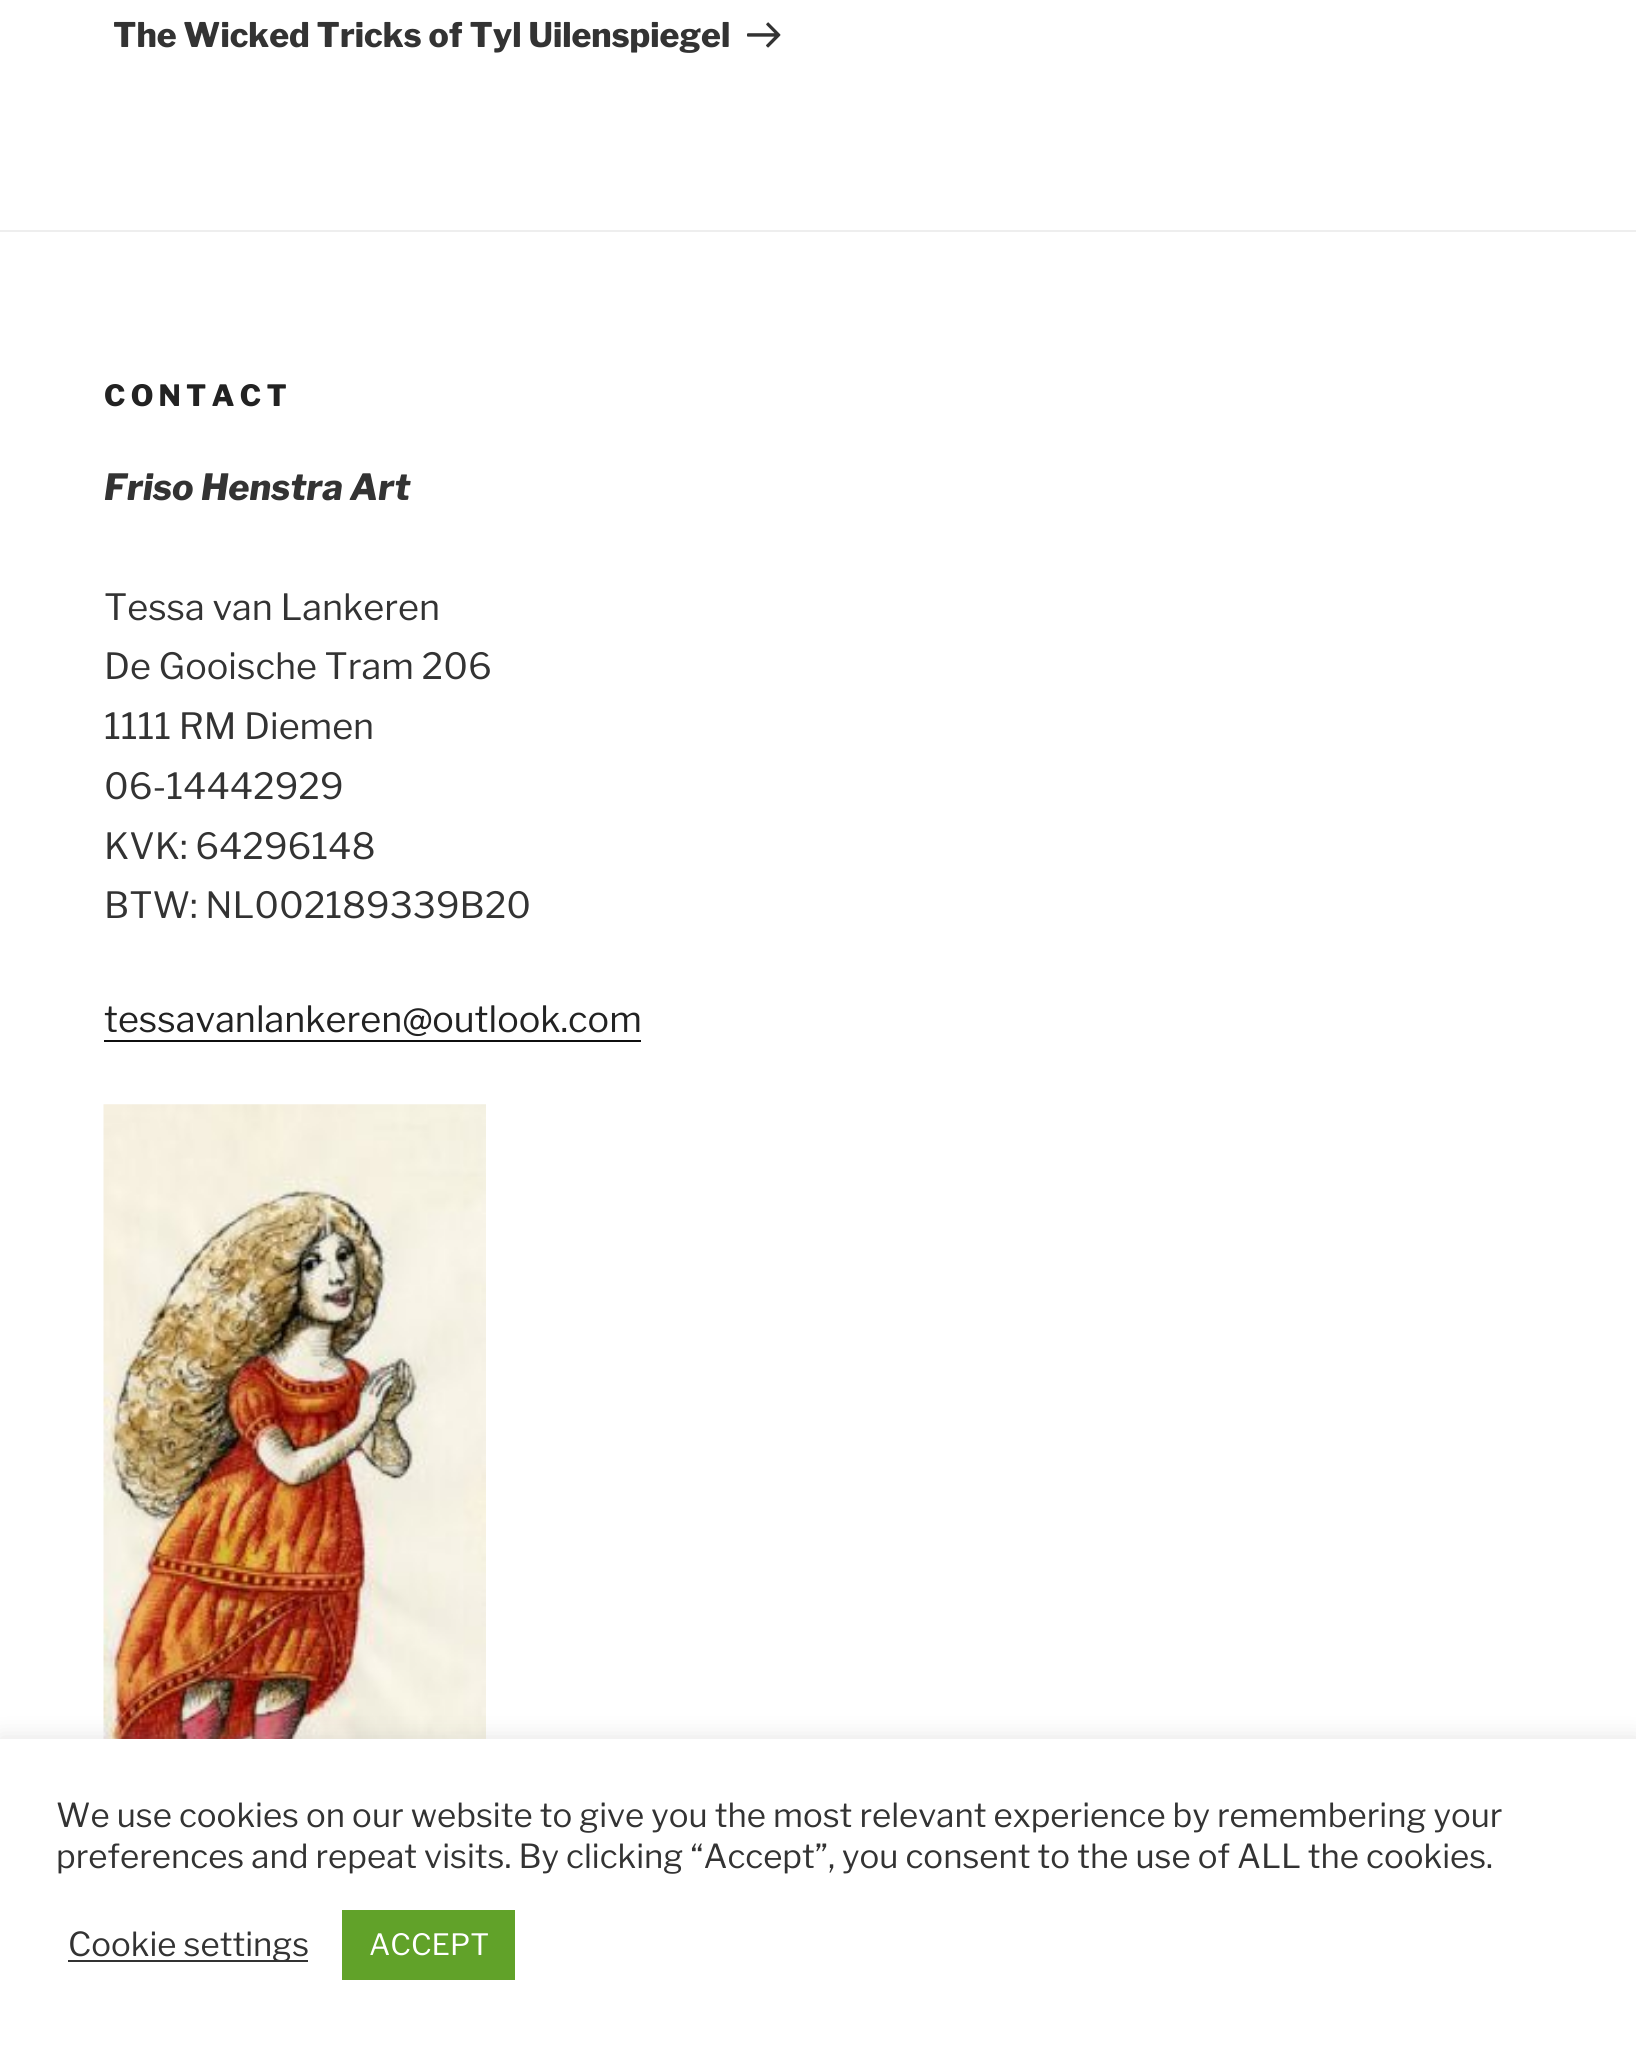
import math
import cairo

surface = cairo.ImageSurface(cairo.FORMAT_RGB24, 1636, 2046)
ctx = cairo.Context(surface)
options = cairo.FontOptions()
options.set_hint_metrics(cairo.HINT_METRICS_OFF)
options.set_hint_style(cairo.HINT_STYLE_NONE)
ctx.set_font_options(options)
ctx.set_miter_limit(4)


def spaced_text(x, y, s, letter, word):
    ctx.move_to(x, y)
    for ch in s:
        ctx.show_text(ch)
        ctx.rel_move_to(letter + word * (ch == ' '), 0)


def round_rect(x, y, w, h, r):
    ctx.new_sub_path()
    for i, (u, v) in enumerate([(x + w - r, y + h - r), (x + r, y + h - r), (x + r, y + r), (x + w - r, y + r)]):
        ctx.arc(u, v, r, i * math.pi / 2, (i + 1) * math.pi / 2)
    ctx.close_path()


def shadow(x, y, w, h, r, blur, alpha):
    ctx.push_group_with_content(cairo.CONTENT_ALPHA)
    ctx.set_operator(cairo.OPERATOR_SOURCE)
    for i in range(15, -16, -2):
        e = blur * i / 6
        if min(w, h) + 2 * e > 0:
            ctx.set_source_rgba(0, 0, 0, alpha * math.erfc((i - 1) / 8.5) / 2)
            round_rect(x - e, y - e, w + 2 * e, h + 2 * e, max(0, min(r + e + blur * .6, min(w, h) / 2 + e)))
            ctx.fill()
    ctx.mask(ctx.pop_group())


def picture(path, x, y, w, h):
    ctx.save()
    ctx.set_source_surface(cairo.ImageSurface.create_from_png(path), x, y)
    ctx.rectangle(x, y, w, h)
    ctx.fill()
    ctx.restore()


ctx.set_source_rgb(1, 1, 1)
ctx.paint()
ctx.select_font_face("Libre Franklin Thin")
ctx.set_font_size(33.75)
ctx.set_source_rgb(0.2, 0.2, 0.2)
ctx.move_to(113, 47)
ctx.show_text("The Wicked Tricks of Tyl Uilenspiegel")
picture("img1.png", 747, 22, 34, 26)
ctx.set_source_rgb(0.933, 0.933, 0.933)
ctx.rectangle(0, 230, 1636, 2)
ctx.fill()
ctx.set_font_size(29.25)
ctx.set_source_rgb(0.133, 0.133, 0.133)
spaced_text(104, 406, "CONTACT", 5.25, 0)
ctx.select_font_face("Libre Franklin Thin", cairo.FONT_SLANT_ITALIC)
ctx.set_font_size(36)
ctx.set_source_rgb(0.2, 0.2, 0.2)
ctx.move_to(104, 500)
ctx.show_text("Friso Henstra Art")
ctx.select_font_face("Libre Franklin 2 Thin")
ctx.move_to(104, 620)
ctx.show_text("Tessa van Lankeren")
ctx.move_to(104, 679)
ctx.show_text("De Gooische Tram 206")
ctx.move_to(104, 739)
ctx.show_text("1111 RM Diemen")
ctx.move_to(104, 799)
ctx.show_text("06-14442929")
ctx.move_to(104, 859)
ctx.show_text("KVK: 64296148")
ctx.move_to(104, 918)
ctx.show_text("BTW: NL002189339B20")
ctx.set_source_rgb(0.133, 0.133, 0.133)
ctx.move_to(104, 1032)
ctx.show_text("tessavanlankeren@outlook.com")
ctx.set_source_rgb(0.059, 0.059, 0.059)
ctx.rectangle(104, 1040, 537, 2)
ctx.fill()
picture("img2.png", 103, 1104, 383, 635)
ctx.set_source_rgb(0.675, 0.671, 0.671)
shadow(0, 1737, 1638, 308, 0, 11, 0.3)
ctx.set_source_rgb(1, 1, 1)
ctx.rectangle(0, 1739, 1636, 307)
ctx.fill()
ctx.set_font_size(33)
ctx.set_source_rgb(0.2, 0.2, 0.2)
ctx.move_to(56, 1827)
ctx.show_text("We use cookies on our website to give you the most relevant experience by remembering your")
ctx.move_to(56, 1868)
ctx.show_text("preferences and repeat visits. By clicking “Accept”, you consent to the use of ALL the cookies.")
ctx.rectangle(68, 1960, 240, 2)
ctx.fill()
ctx.move_to(68, 1956)
ctx.show_text("Cookie settings")
ctx.set_source_rgb(0.38, 0.635, 0.161)
ctx.rectangle(342, 1910, 173, 70)
ctx.fill()
ctx.set_font_size(29.25)
ctx.set_source_rgb(1, 1, 1)
ctx.move_to(369, 1955)
ctx.show_text("ACCEPT")
surface.write_to_png("page.png")
